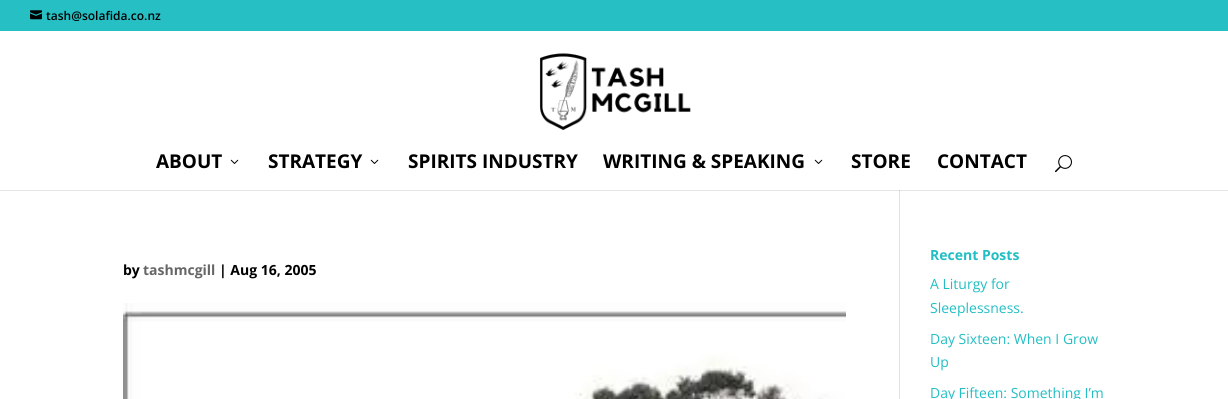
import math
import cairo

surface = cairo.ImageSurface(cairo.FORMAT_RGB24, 1228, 399)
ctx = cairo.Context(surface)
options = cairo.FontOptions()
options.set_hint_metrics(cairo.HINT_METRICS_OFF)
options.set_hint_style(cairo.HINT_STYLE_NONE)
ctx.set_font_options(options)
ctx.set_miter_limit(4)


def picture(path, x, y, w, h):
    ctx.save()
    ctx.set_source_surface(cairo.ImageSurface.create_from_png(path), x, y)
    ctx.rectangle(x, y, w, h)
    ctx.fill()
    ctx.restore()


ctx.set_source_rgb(0.145, 0.749, 0.769)
ctx.paint()
picture("img1.png", 30, 10, 12, 10)
ctx.select_font_face("Open Sans SemiBold")
ctx.set_font_size(12)
ctx.set_source_rgb(0, 0, 0)
ctx.move_to(46, 20)
ctx.show_text("tash@solafida.co.nz")
ctx.set_source_rgb(1, 1, 1)
ctx.rectangle(0, 31, 1228, 159)
ctx.fill()
picture("img2.png", 539, 53, 152, 77)
ctx.select_font_face("Open Sans", cairo.FONT_SLANT_NORMAL, cairo.FONT_WEIGHT_BOLD)
ctx.set_font_size(19)
ctx.set_source_rgb(0, 0, 0)
ctx.move_to(156, 168)
ctx.show_text("ABOUT")
picture("img3.png", 230, 159, 9, 5)
ctx.move_to(268, 168)
ctx.show_text("STRATEGY")
picture("img3.png", 370, 159, 9, 5)
ctx.move_to(408, 168)
ctx.show_text("SPIRITS INDUSTRY")
ctx.move_to(603, 168)
ctx.show_text("WRITING & SPEAKING")
picture("img3.png", 814, 159, 9, 5)
ctx.move_to(851, 168)
ctx.show_text("STORE")
ctx.move_to(937, 168)
ctx.show_text("CONTACT")
picture("img4.png", 1055, 155, 17, 18)
ctx.set_source_rgb(1, 1, 1)
ctx.rectangle(0, 191, 1228, 208)
ctx.fill()
ctx.set_source_rgb(0.902, 0.902, 0.902)
ctx.rectangle(0, 190, 1228, 1)
ctx.fill()
ctx.set_source_rgb(0.886, 0.886, 0.886)
ctx.rectangle(899, 190, 1, 209)
ctx.fill()
ctx.set_source_rgb(0.796, 0.796, 0.796)
ctx.rectangle(899, 190, 1, 1)
ctx.fill()
ctx.set_font_size(14)
ctx.set_source_rgb(0, 0, 0)
ctx.move_to(123, 275)
ctx.show_text("by")
ctx.set_source_rgb(0.4, 0.4, 0.4)
ctx.move_to(143, 275)
ctx.show_text("tashmcgill")
ctx.set_source_rgb(0, 0, 0)
ctx.move_to(219, 275)
ctx.show_text("| Aug 16, 2005")
picture("img5.png", 123, 303, 723, 96)
ctx.set_source_rgb(0.137, 0.745, 0.769)
ctx.move_to(930, 260)
ctx.show_text("Recent Posts")
ctx.select_font_face("Open Sans")
ctx.move_to(930, 289)
ctx.show_text("A Liturgy for")
ctx.move_to(930, 313)
ctx.show_text("Sleeplessness.")
ctx.move_to(930, 344)
ctx.show_text("Day Sixteen: When I Grow")
ctx.move_to(930, 367)
ctx.show_text("Up")
ctx.move_to(930, 398)
ctx.show_text("Day Fifteen: Something I’m")
surface.write_to_png("page.png")
